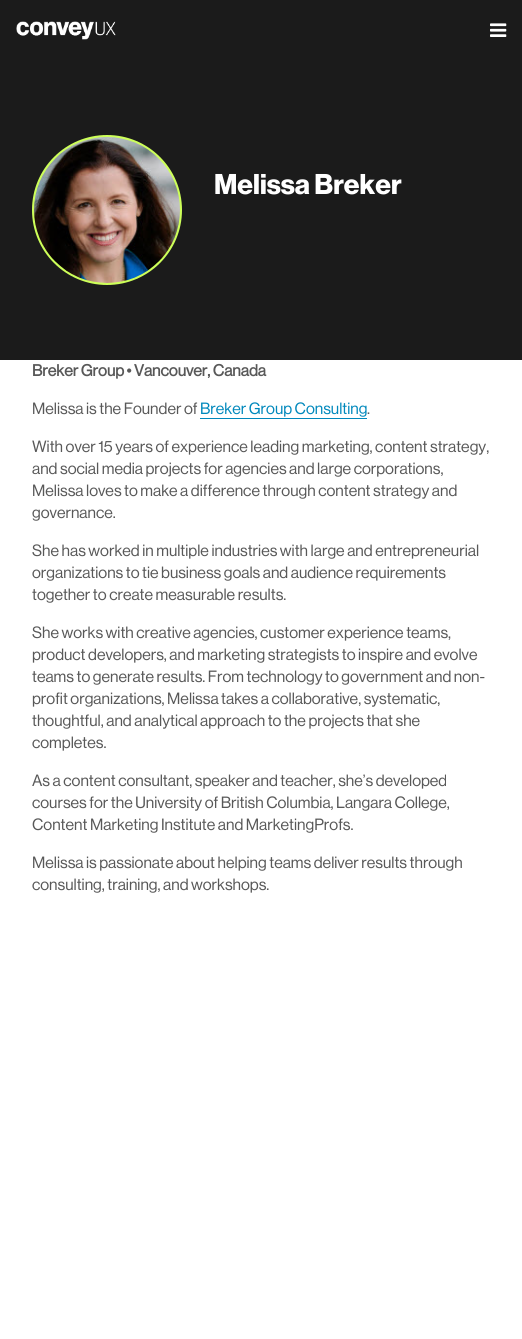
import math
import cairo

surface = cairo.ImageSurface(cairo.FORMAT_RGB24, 522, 1339)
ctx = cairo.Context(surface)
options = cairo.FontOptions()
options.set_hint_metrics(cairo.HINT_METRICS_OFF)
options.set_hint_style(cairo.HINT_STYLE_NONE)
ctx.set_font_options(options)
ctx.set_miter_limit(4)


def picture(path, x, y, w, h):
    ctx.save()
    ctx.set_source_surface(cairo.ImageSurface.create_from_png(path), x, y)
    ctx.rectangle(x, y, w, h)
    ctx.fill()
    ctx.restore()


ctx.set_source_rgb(1, 1, 1)
ctx.paint()
ctx.set_source_rgb(0.106, 0.106, 0.106)
ctx.rectangle(0, 0, 522, 360)
ctx.fill()
picture("img1.png", 16, 21, 100, 19)
picture("img2.png", 490, 23, 17, 14)
ctx.set_source_rgb(0.804, 1, 0.349)
ctx.arc(107, 210, 75, 0, 2 * math.pi)
ctx.fill()
picture("img3.png", 34, 137, 146, 146)
ctx.select_font_face("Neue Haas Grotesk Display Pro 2", cairo.FONT_SLANT_NORMAL, cairo.FONT_WEIGHT_BOLD)
ctx.set_font_size(28)
ctx.set_source_rgb(1, 1, 1)
ctx.move_to(214, 194)
ctx.show_text("Melissa Breker")
ctx.select_font_face("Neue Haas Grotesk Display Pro", cairo.FONT_SLANT_NORMAL, cairo.FONT_WEIGHT_BOLD)
ctx.set_font_size(16)
ctx.set_source_rgb(0.345, 0.345, 0.345)
ctx.move_to(32, 376)
ctx.show_text("Breker Group • Vancouver, Canada")
ctx.select_font_face("Neue Haas Grotesk Display Pro")
ctx.move_to(32, 414)
ctx.show_text("Melissa is the Founder of")
ctx.set_source_rgb(0, 0.533, 0.737)
ctx.move_to(200, 414)
ctx.show_text("Breker Group Consulting")
ctx.rectangle(200, 418, 167, 1)
ctx.fill()
ctx.set_source_rgb(0.345, 0.345, 0.345)
ctx.move_to(367, 414)
ctx.show_text(".")
ctx.move_to(32, 452)
ctx.show_text("With over 15 years of experience leading marketing, content strategy,")
ctx.move_to(32, 474)
ctx.show_text("and social media projects for agencies and large corporations,")
ctx.move_to(32, 496)
ctx.show_text("Melissa loves to make a difference through content strategy and")
ctx.move_to(32, 518)
ctx.show_text("governance.")
ctx.move_to(32, 556)
ctx.show_text("She has worked in multiple industries with large and entrepreneurial")
ctx.move_to(32, 578)
ctx.show_text("organizations to tie business goals and audience requirements")
ctx.move_to(32, 600)
ctx.show_text("together to create measurable results.")
ctx.move_to(32, 638)
ctx.show_text("She works with creative agencies, customer experience teams,")
ctx.move_to(32, 660)
ctx.show_text("product developers, and marketing strategists to inspire and evolve")
ctx.move_to(32, 682)
ctx.show_text("teams to generate results. From technology to government and non-")
ctx.move_to(32, 704)
ctx.show_text("profit organizations, Melissa takes a collaborative, systematic,")
ctx.move_to(32, 726)
ctx.show_text("thoughtful, and analytical approach to the projects that she")
ctx.move_to(32, 748)
ctx.show_text("completes.")
ctx.move_to(32, 786)
ctx.show_text("As a content consultant, speaker and teacher, she’s developed")
ctx.move_to(32, 808)
ctx.show_text("courses for the University of British Columbia, Langara College,")
ctx.move_to(32, 830)
ctx.show_text("Content Marketing Institute and MarketingProfs.")
ctx.move_to(32, 868)
ctx.show_text("Melissa is passionate about helping teams deliver results through")
ctx.move_to(32, 890)
ctx.show_text("consulting, training, and workshops.")
surface.write_to_png("page.png")
